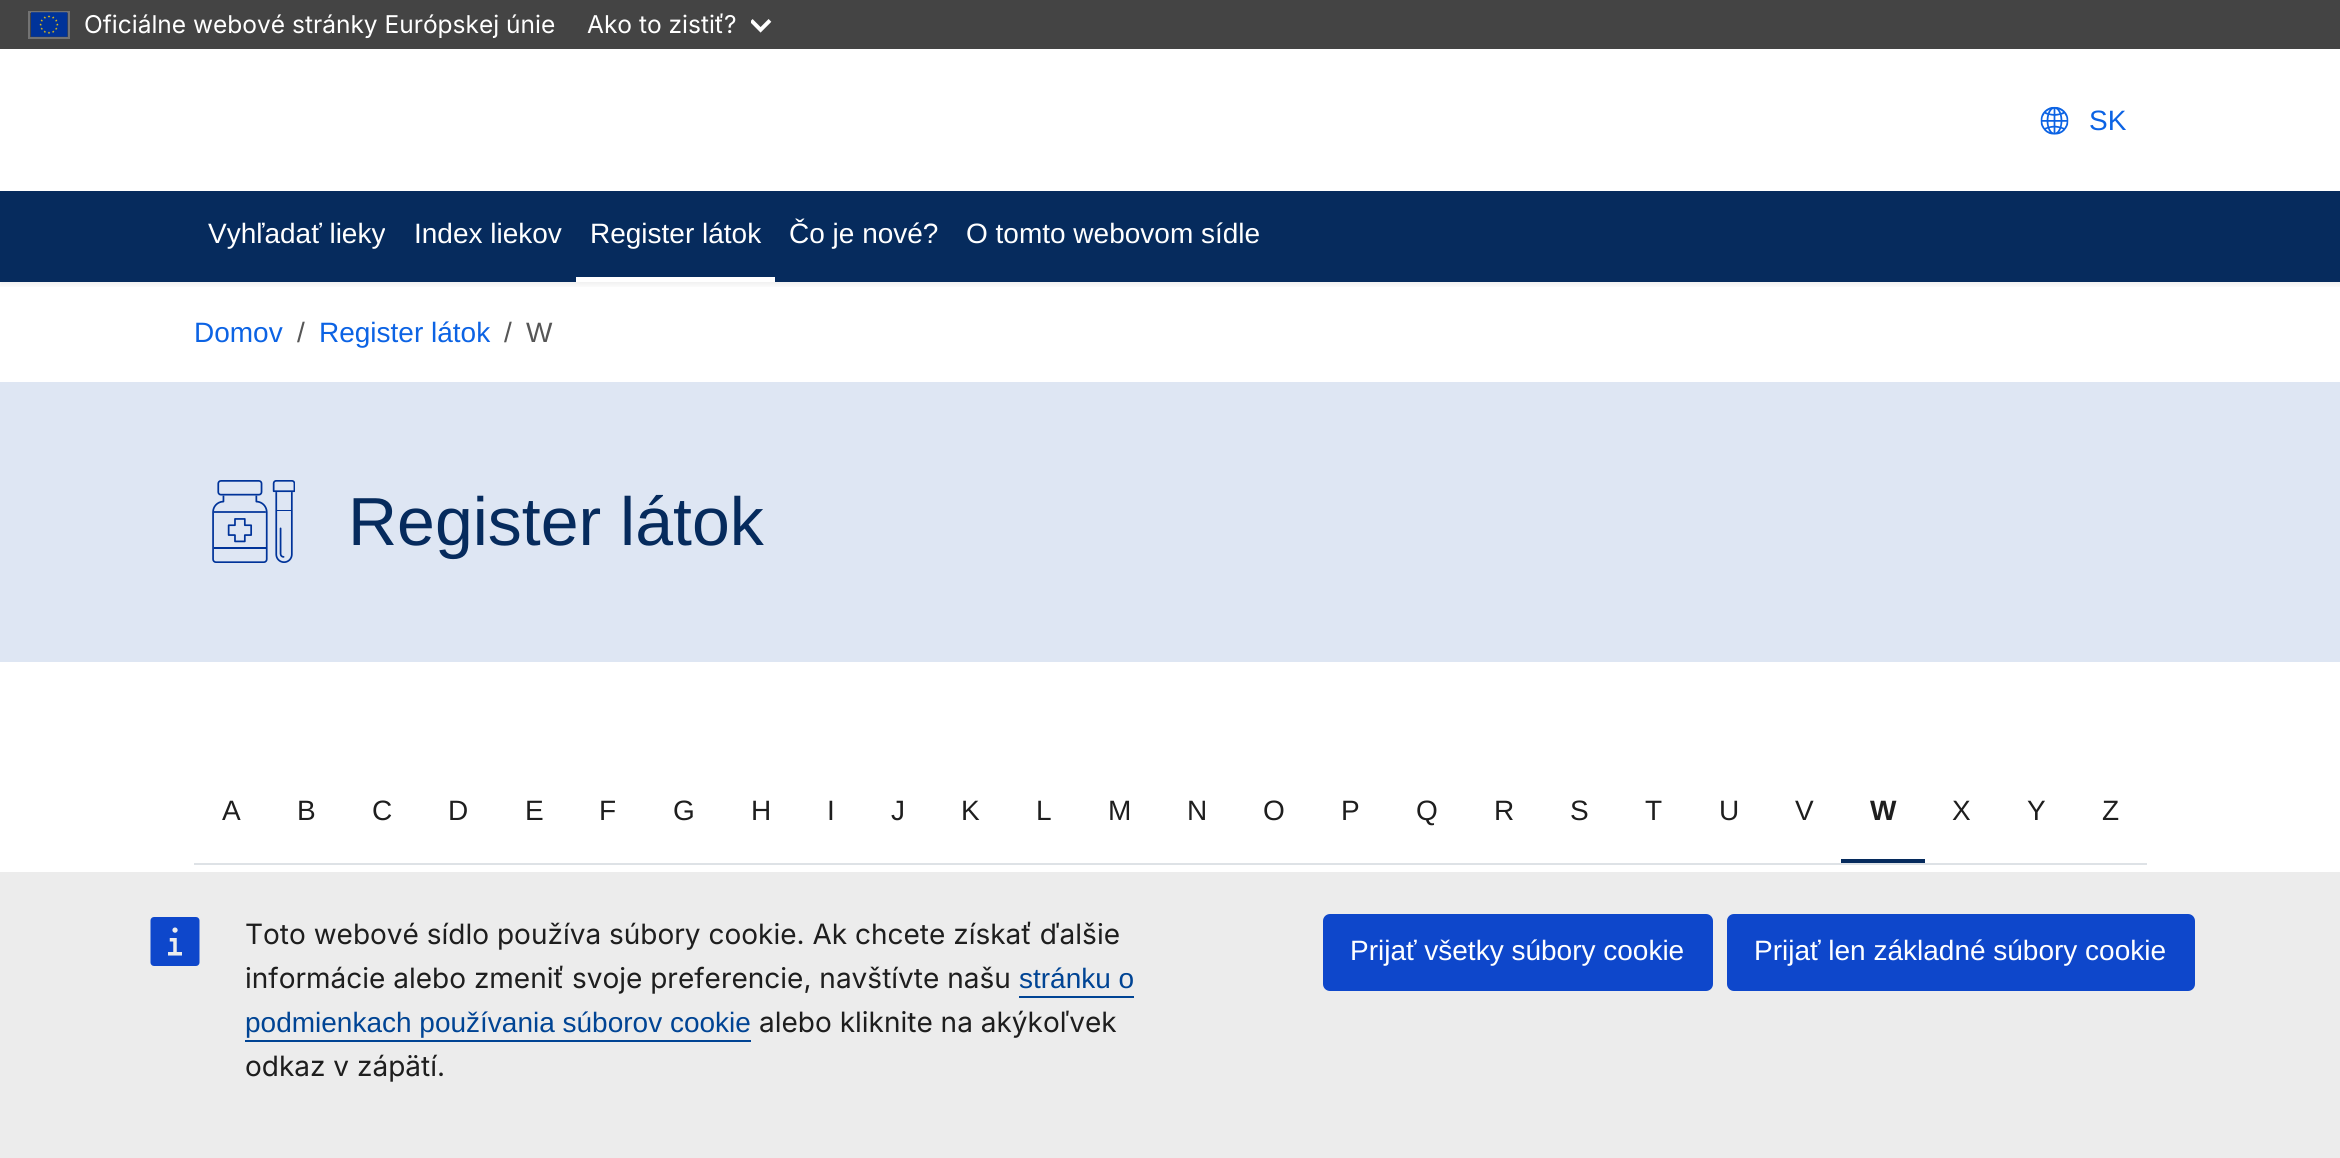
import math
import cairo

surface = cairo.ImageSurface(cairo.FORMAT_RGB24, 2340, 1158)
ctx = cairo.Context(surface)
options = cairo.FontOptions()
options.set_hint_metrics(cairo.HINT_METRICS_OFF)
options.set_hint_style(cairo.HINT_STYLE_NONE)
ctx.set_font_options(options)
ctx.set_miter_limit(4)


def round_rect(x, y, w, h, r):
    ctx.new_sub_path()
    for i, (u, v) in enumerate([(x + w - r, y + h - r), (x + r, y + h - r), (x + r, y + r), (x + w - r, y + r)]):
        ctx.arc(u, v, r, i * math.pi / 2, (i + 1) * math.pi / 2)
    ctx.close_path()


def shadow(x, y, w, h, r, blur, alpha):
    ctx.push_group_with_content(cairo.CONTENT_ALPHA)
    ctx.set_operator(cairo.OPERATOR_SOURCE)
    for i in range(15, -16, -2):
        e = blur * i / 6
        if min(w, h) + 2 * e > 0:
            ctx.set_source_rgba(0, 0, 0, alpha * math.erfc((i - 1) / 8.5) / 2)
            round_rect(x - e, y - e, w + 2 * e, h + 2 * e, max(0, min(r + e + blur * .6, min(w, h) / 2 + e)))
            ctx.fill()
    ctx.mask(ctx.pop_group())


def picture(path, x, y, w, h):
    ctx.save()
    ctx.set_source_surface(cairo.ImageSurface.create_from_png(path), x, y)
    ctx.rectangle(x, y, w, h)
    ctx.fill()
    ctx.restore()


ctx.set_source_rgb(1, 1, 1)
ctx.paint()
ctx.save()
ctx.rectangle(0, 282, 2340, 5)
ctx.clip()
ctx.set_source_rgb(0, 0, 0)
shadow(0, 53, 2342, 232, 0, 3.5, 0.07)
ctx.restore()
ctx.set_source_rgb(0.267, 0.267, 0.267)
ctx.rectangle(0, 0, 2340, 49)
ctx.fill()
ctx.rectangle(29, 12, 40, 26)
ctx.set_source_rgb(0.451, 0.451, 0.451)
ctx.stroke()
picture("img1.png", 31, 12, 37, 25)
ctx.select_font_face("Inter")
ctx.set_font_size(24.5)
ctx.set_source_rgb(1, 1, 1)
ctx.move_to(84, 33)
ctx.show_text("Oficiálne webové stránky Európskej únie")
ctx.move_to(587, 33)
ctx.show_text("Ako to zistiť?")
picture("img2.png", 751, 19, 21, 14)
picture("img3.png", 2040, 106, 29, 29)
ctx.select_font_face("Liberation Sans")
ctx.set_font_size(28)
ctx.set_source_rgb(0.047, 0.388, 0.894)
ctx.move_to(2089, 130)
ctx.show_text("SK")
ctx.set_source_rgb(0.027, 0.169, 0.365)
ctx.rectangle(0, 191, 2340, 91)
ctx.fill()
ctx.set_source_rgb(1, 1, 1)
ctx.move_to(208, 243)
ctx.show_text("Vyhľadať lieky")
ctx.move_to(414, 243)
ctx.show_text("Index liekov")
ctx.rectangle(576, 277, 199, 5)
ctx.fill()
ctx.move_to(590, 243)
ctx.show_text("Register látok")
ctx.move_to(789, 243)
ctx.show_text("Čo je nové?")
ctx.move_to(966, 243)
ctx.show_text("O tomto webovom sídle")
ctx.set_source_rgb(0.047, 0.388, 0.894)
ctx.move_to(194, 342)
ctx.show_text("Domov")
ctx.set_source_rgb(0.337, 0.337, 0.337)
ctx.move_to(297, 342)
ctx.show_text("/")
ctx.set_source_rgb(0.047, 0.388, 0.894)
ctx.move_to(319, 342)
ctx.show_text("Register látok")
ctx.set_source_rgb(0.337, 0.337, 0.337)
ctx.move_to(504, 342)
ctx.show_text("/")
ctx.move_to(526, 342)
ctx.show_text("W")
ctx.set_source_rgb(0.871, 0.902, 0.953)
ctx.rectangle(0, 382, 2340, 280)
ctx.fill()
picture("img4.png", 212, 480, 83, 83)
ctx.set_font_size(68)
ctx.set_source_rgb(0.027, 0.169, 0.365)
ctx.move_to(348, 545)
ctx.show_text("Register látok")
ctx.set_source_rgb(0.871, 0.886, 0.902)
ctx.rectangle(194, 863, 1953, 2)
ctx.fill()
ctx.set_font_size(28)
ctx.set_source_rgb(0.118, 0.118, 0.118)
ctx.move_to(222, 820)
ctx.show_text("A")
ctx.move_to(297, 820)
ctx.show_text("B")
ctx.move_to(372, 820)
ctx.show_text("C")
ctx.move_to(448, 820)
ctx.show_text("D")
ctx.move_to(525, 820)
ctx.show_text("E")
ctx.move_to(599, 820)
ctx.show_text("F")
ctx.move_to(673, 820)
ctx.show_text("G")
ctx.move_to(751, 820)
ctx.show_text("H")
ctx.move_to(827, 820)
ctx.show_text("I")
ctx.move_to(891, 820)
ctx.show_text("J")
ctx.move_to(961, 820)
ctx.show_text("K")
ctx.move_to(1036, 820)
ctx.show_text("L")
ctx.move_to(1108, 820)
ctx.show_text("M")
ctx.move_to(1187, 820)
ctx.show_text("N")
ctx.move_to(1263, 820)
ctx.show_text("O")
ctx.move_to(1341, 820)
ctx.show_text("P")
ctx.move_to(1416, 820)
ctx.show_text("Q")
ctx.move_to(1494, 820)
ctx.show_text("R")
ctx.move_to(1570, 820)
ctx.show_text("S")
ctx.move_to(1645, 820)
ctx.show_text("T")
ctx.move_to(1719, 820)
ctx.show_text("U")
ctx.move_to(1795, 820)
ctx.show_text("V")
ctx.set_source_rgb(0.027, 0.169, 0.365)
ctx.rectangle(1841, 859, 84, 4)
ctx.fill()
ctx.select_font_face("Liberation Sans", cairo.FONT_SLANT_NORMAL, cairo.FONT_WEIGHT_BOLD)
ctx.set_source_rgb(0.118, 0.118, 0.118)
ctx.move_to(1870, 820)
ctx.show_text("W")
ctx.select_font_face("Liberation Sans")
ctx.move_to(1952, 820)
ctx.show_text("X")
ctx.move_to(2027, 820)
ctx.show_text("Y")
ctx.move_to(2102, 820)
ctx.show_text("Z")
ctx.set_source_rgb(0.922, 0.922, 0.922)
ctx.rectangle(0, 872, 2340, 286)
ctx.fill()
picture("img5.png", 150, 917, 50, 49)
ctx.select_font_face("Inter")
ctx.set_source_rgb(0.118, 0.118, 0.118)
ctx.move_to(245, 944)
ctx.show_text("Toto webové sídlo používa súbory cookie. Ak chcete získať ďalšie")
ctx.move_to(245, 988)
ctx.show_text("informácie alebo zmeniť svoje preferencie, navštívte našu")
ctx.select_font_face("Liberation Sans")
ctx.set_source_rgb(0, 0.267, 0.58)
ctx.move_to(1019, 988)
ctx.show_text("stránku o")
ctx.rectangle(1019, 996, 115, 2)
ctx.fill()
ctx.move_to(245, 1032)
ctx.show_text("podmienkach používania súborov cookie")
ctx.rectangle(245, 1040, 506, 2)
ctx.fill()
ctx.select_font_face("Inter")
ctx.set_source_rgb(0.118, 0.118, 0.118)
ctx.move_to(759, 1032)
ctx.show_text("alebo kliknite na akýkoľvek")
ctx.move_to(245, 1076)
ctx.show_text("odkaz v zápätí.")
ctx.set_source_rgb(0.055, 0.278, 0.796)
round_rect(1323, 914, 390, 77, 7)
ctx.fill()
ctx.select_font_face("Liberation Sans")
ctx.set_source_rgb(1, 1, 1)
ctx.move_to(1350, 960)
ctx.show_text("Prijať všetky súbory cookie")
ctx.set_source_rgb(0.055, 0.278, 0.796)
round_rect(1727, 914, 468, 77, 7)
ctx.fill()
ctx.set_source_rgb(1, 1, 1)
ctx.move_to(1754, 960)
ctx.show_text("Prijať len základné súbory cookie")
surface.write_to_png("page.png")
